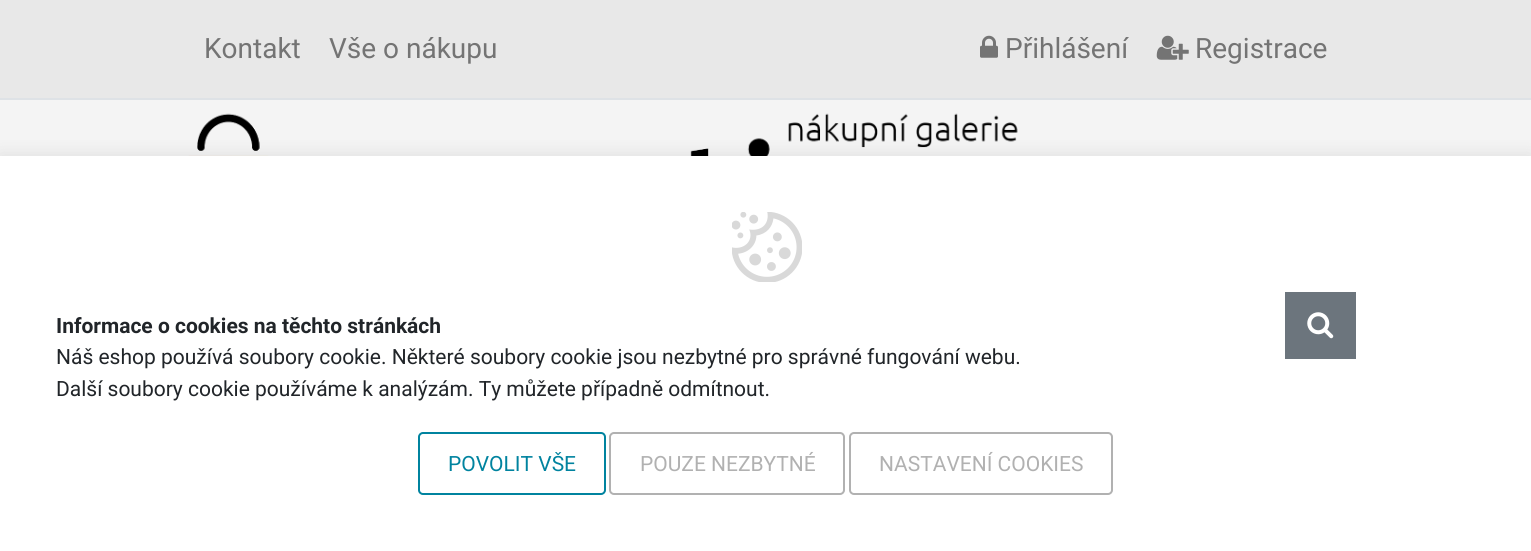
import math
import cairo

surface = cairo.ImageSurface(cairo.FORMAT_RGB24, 1531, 551)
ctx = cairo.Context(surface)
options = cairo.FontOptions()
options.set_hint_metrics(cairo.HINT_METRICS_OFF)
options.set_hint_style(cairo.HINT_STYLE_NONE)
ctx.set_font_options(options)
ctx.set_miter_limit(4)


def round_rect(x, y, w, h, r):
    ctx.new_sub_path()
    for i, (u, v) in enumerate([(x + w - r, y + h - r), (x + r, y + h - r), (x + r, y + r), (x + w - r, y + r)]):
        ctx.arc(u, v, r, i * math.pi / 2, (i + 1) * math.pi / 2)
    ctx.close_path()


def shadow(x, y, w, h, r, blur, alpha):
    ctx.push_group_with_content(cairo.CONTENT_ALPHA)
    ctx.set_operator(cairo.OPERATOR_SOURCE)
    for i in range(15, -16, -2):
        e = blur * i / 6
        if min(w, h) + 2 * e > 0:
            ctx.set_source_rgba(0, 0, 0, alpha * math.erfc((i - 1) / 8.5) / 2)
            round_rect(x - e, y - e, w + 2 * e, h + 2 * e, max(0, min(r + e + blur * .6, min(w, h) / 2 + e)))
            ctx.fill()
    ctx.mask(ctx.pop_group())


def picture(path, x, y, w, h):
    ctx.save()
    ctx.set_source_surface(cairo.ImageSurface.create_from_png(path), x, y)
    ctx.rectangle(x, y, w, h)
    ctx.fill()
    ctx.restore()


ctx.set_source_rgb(0.957, 0.957, 0.957)
ctx.paint()
ctx.set_source_rgb(0.91, 0.91, 0.91)
ctx.rectangle(0, 0, 1531, 98)
ctx.fill()
ctx.set_source_rgb(0.871, 0.886, 0.902)
ctx.rectangle(0, 98, 1531, 2)
ctx.fill()
ctx.select_font_face("Roboto")
ctx.set_font_size(28)
ctx.set_source_rgb(0.455, 0.455, 0.455)
ctx.move_to(204, 58)
ctx.show_text("Kontakt")
ctx.move_to(329, 58)
ctx.show_text("Vše o nákupu")
picture("img1.png", 980, 35, 18, 23)
ctx.move_to(1005, 58)
ctx.show_text("Přihlášení")
picture("img2.png", 1156, 35, 33, 25)
ctx.move_to(1195, 58)
ctx.show_text("Registrace")
picture("img3.png", 188, 113, 831, 43)
ctx.set_source_rgb(0, 0, 0)
shadow(0, 156, 1531, 395, 0, 9, 0.1)
ctx.set_source_rgb(1, 1, 1)
ctx.rectangle(0, 156, 1531, 395)
ctx.fill()
picture("img4.png", 732, 212, 70, 70)
ctx.select_font_face("Roboto", cairo.FONT_SLANT_NORMAL, cairo.FONT_WEIGHT_BOLD)
ctx.set_font_size(21)
ctx.set_source_rgb(0.129, 0.145, 0.161)
ctx.move_to(56, 333)
ctx.show_text("Informace o cookies na těchto stránkách")
ctx.select_font_face("Roboto")
ctx.move_to(56, 364)
ctx.show_text("Náš eshop používá soubory cookie. Některé soubory cookie jsou nezbytné pro správné fungování webu.")
ctx.move_to(56, 396)
ctx.show_text("Další soubory cookie používáme k analýzám. Ty můžete případně odmítnout.")
round_rect(419, 433, 186, 61, 4)
ctx.set_source_rgb(0, 0.514, 0.624)
ctx.stroke()
ctx.move_to(448, 471)
ctx.show_text("POVOLIT VŠE")
round_rect(610, 433, 234, 61, 4)
ctx.set_source_rgb(0.694, 0.694, 0.694)
ctx.stroke()
ctx.move_to(640, 471)
ctx.show_text("POUZE NEZBYTNÉ")
round_rect(850, 433, 262, 61, 4)
ctx.stroke()
ctx.move_to(879, 471)
ctx.show_text("NASTAVENÍ COOKIES")
ctx.set_source_rgb(0.424, 0.459, 0.49)
ctx.rectangle(1285, 292, 71, 67)
ctx.fill()
picture("img5.png", 1307, 312, 27, 27)
surface.write_to_png("page.png")
